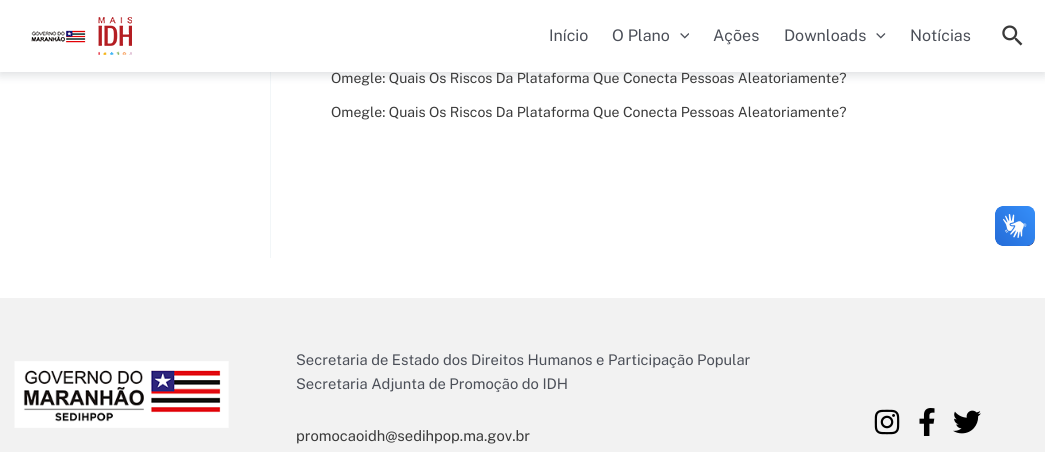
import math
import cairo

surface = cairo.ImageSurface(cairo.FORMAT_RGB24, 1045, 452)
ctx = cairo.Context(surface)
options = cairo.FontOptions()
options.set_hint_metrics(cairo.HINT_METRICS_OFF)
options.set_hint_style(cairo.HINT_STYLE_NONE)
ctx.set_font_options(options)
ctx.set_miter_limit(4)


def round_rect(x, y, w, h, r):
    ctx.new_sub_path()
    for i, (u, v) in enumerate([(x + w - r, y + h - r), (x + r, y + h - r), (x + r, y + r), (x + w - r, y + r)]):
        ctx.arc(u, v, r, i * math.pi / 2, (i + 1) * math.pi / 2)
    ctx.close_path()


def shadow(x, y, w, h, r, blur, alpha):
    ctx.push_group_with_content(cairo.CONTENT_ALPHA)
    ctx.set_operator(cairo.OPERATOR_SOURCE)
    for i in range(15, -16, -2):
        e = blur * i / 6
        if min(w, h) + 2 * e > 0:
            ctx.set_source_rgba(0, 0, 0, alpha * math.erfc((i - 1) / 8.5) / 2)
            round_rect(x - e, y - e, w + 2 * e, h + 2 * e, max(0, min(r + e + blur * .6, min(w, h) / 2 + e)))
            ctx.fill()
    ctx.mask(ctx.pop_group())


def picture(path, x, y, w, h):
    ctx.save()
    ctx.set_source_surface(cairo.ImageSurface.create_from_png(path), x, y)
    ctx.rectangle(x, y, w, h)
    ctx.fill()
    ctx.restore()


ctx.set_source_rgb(1, 1, 1)
ctx.paint()
ctx.set_source_rgb(0.949, 0.961, 0.969)
ctx.rectangle(270, 72, 1, 186)
ctx.fill()
ctx.set_source_rgb(0.141, 0.196, 0.259)
shadow(0, 3, 1045, 72, 0, 5, 0.16)
ctx.set_source_rgb(1, 1, 1)
ctx.rectangle(0, 0, 1045, 72)
ctx.fill()
picture("img1.png", 31, 17, 101, 38)
ctx.select_font_face("Public Sans")
ctx.set_font_size(16)
ctx.set_source_rgb(0.294, 0.31, 0.345)
ctx.move_to(549, 41)
ctx.show_text("Início")
ctx.move_to(612, 41)
ctx.show_text("O Plano")
picture("img2.png", 680, 33, 9, 6)
ctx.move_to(713, 41)
ctx.show_text("Ações")
ctx.move_to(784, 41)
ctx.show_text("Downloads")
picture("img3.png", 876, 33, 10, 6)
ctx.move_to(910, 41)
ctx.show_text("Notícias")
picture("img4.png", 1002, 25, 21, 21)
ctx.set_font_size(14)
ctx.set_source_rgb(0.227, 0.227, 0.227)
ctx.move_to(331, 83)
ctx.show_text("Omegle: Quais Os Riscos Da Plataforma Que Conecta Pessoas Aleatoriamente?")
ctx.move_to(331, 117)
ctx.show_text("Omegle: Quais Os Riscos Da Plataforma Que Conecta Pessoas Aleatoriamente?")
ctx.set_source_rgb(0.949, 0.949, 0.949)
ctx.rectangle(0, 298, 1045, 154)
ctx.fill()
picture("img5.png", 14, 361, 215, 67)
ctx.set_font_size(14.7)
ctx.set_source_rgb(0.294, 0.31, 0.345)
ctx.move_to(296, 365)
ctx.show_text("Secretaria de Estado dos Direitos Humanos e Participação Popular")
ctx.move_to(296, 389)
ctx.show_text("Secretaria Adjunta de Promoção do IDH")
ctx.set_source_rgb(0.227, 0.227, 0.227)
ctx.move_to(296, 441)
ctx.show_text("promocaoidh@sedihpop.ma.gov.br")
picture("img6.png", 874, 409, 26, 26)
picture("img7.png", 919, 408, 16, 28)
picture("img8.png", 953, 410, 28, 24)
picture("img9.png", 995, 206, 40, 40)
picture("img10.png", 995, 206, 40, 40)
surface.write_to_png("page.png")
